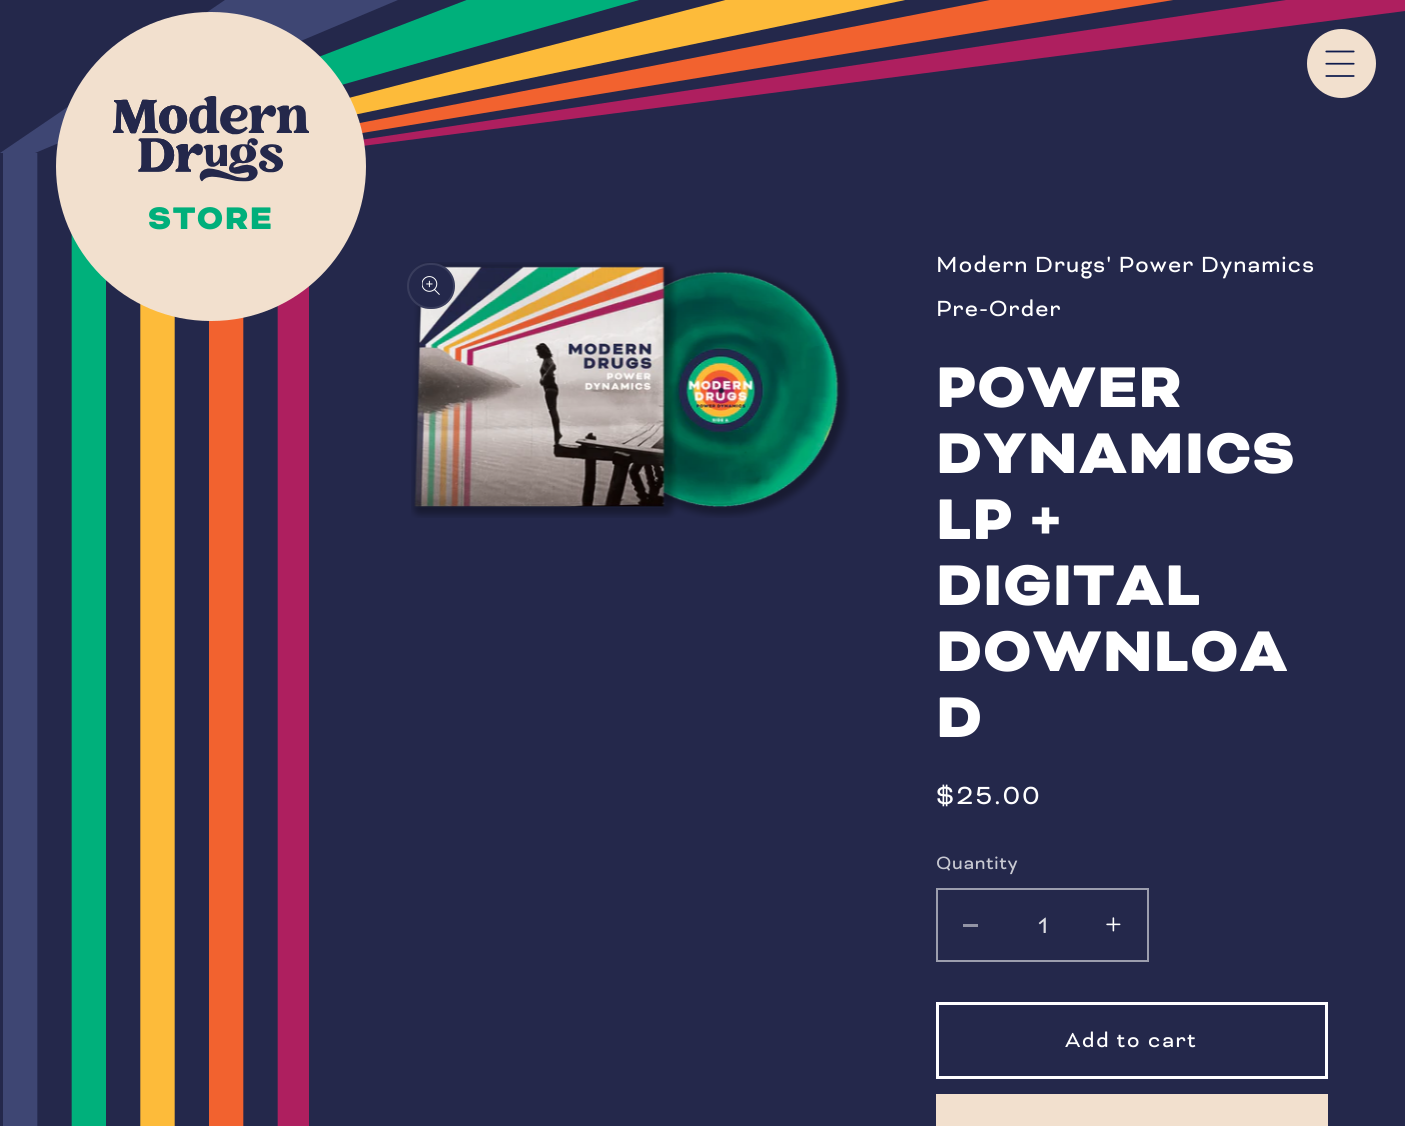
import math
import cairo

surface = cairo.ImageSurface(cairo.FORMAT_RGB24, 1405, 1126)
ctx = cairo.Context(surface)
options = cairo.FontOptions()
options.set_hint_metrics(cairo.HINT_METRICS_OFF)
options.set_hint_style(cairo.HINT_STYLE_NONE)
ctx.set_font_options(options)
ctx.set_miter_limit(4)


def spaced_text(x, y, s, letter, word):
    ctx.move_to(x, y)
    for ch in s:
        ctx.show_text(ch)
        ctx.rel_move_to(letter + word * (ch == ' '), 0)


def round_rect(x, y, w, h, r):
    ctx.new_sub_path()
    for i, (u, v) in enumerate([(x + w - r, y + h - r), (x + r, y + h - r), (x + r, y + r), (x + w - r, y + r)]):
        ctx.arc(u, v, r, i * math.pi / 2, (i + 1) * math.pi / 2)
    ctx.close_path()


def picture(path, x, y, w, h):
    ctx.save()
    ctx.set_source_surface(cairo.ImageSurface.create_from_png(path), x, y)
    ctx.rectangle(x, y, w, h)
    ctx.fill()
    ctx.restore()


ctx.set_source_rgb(0.141, 0.157, 0.294)
ctx.paint()
picture("img1.png", 3, 153, 306, 973)
ctx.set_source_rgb(0.243, 0.275, 0.451)
ctx.new_path()
ctx.move_to(35, 153)
ctx.line_to(590, -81)
ctx.line_to(344, -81)
ctx.line_to(0, 153)
ctx.fill()
ctx.set_source_rgb(0, 0.69, 0.482)
ctx.new_path()
ctx.move_to(69, 153)
ctx.line_to(677, -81)
ctx.line_to(923, -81)
ctx.line_to(103, 153)
ctx.fill()
ctx.set_source_rgb(0.992, 0.733, 0.227)
ctx.new_path()
ctx.move_to(171, 153)
ctx.line_to(1294, -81)
ctx.line_to(1037, -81)
ctx.line_to(137, 153)
ctx.fill()
ctx.set_source_rgb(0.949, 0.384, 0.184)
ctx.new_path()
ctx.move_to(206, 153)
ctx.line_to(1405, -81)
ctx.line_to(1405, -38)
ctx.line_to(240, 153)
ctx.fill()
ctx.set_source_rgb(0.682, 0.122, 0.373)
ctx.new_path()
ctx.move_to(308, 153)
ctx.line_to(1405, 11)
ctx.line_to(1405, -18)
ctx.line_to(274, 153)
ctx.fill()
ctx.set_source_rgb(0.949, 0.878, 0.808)
ctx.arc(1341.5, 63.5, 34.5, 0, 2 * math.pi)
ctx.fill()
picture("img2.png", 1325, 50, 30, 27)
round_rect(56, 12, 310, 309, 154.5)
ctx.fill()
picture("img3.png", 113, 96, 196, 86)
ctx.select_font_face("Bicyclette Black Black")
ctx.set_font_size(36)
ctx.set_source_rgb(0, 0.686, 0.482)
spaced_text(148, 229, "STORE", 1.5, 0)
picture("img4.png", 411, 262, 439, 256)
ctx.set_source_rgb(0.141, 0.157, 0.294)
round_rect(407, 263, 48, 46, 23)
ctx.fill()
round_rect(408, 264, 46, 44, 22)
ctx.set_source_rgba(1, 1, 1, 0.1)
ctx.stroke()
picture("img5.png", 422, 276, 18, 19)
ctx.select_font_face("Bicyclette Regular")
ctx.set_font_size(25.25)
ctx.set_source_rgb(1, 1, 1)
spaced_text(936, 272, "Modern Drugs' Power Dynamics", 0.95, 0)
spaced_text(936, 316, "Pre-Order", 0.95, 0)
ctx.select_font_face("Bicyclette Black Black")
ctx.set_font_size(66)
spaced_text(936, 407, "POWER", 1, 0)
spaced_text(936, 473, "DYNAMICS", 1, 0)
spaced_text(936, 539, "LP +", 1, 0)
spaced_text(936, 605, "DIGITAL", 1, 0)
spaced_text(936, 671, "DOWNLOA", 1, 0)
spaced_text(936, 737, "D", 1, 0)
ctx.select_font_face("Bicyclette Regular")
ctx.set_font_size(28.5)
spaced_text(936, 804, "$25.00", 2, 0)
ctx.set_font_size(20.5)
ctx.set_source_rgb(0.784, 0.788, 0.824)
spaced_text(936, 869, "Quantity", 0.75, 0)
ctx.set_source_rgb(0.573, 0.58, 0.647)
ctx.rectangle(963, 924, 15, 3)
ctx.fill()
picture("img6.png", 1106, 917, 15, 15)
ctx.rectangle(937, 889, 211, 72)
ctx.set_source_rgb(0.612, 0.62, 0.682)
ctx.stroke()
ctx.set_font_size(25.25)
ctx.set_source_rgb(0.871, 0.875, 0.894)
ctx.move_to(1038, 933)
ctx.show_text("1")
ctx.rectangle(937.5, 1003.5, 389, 74)
ctx.set_source_rgb(1, 1, 1)
ctx.set_line_width(3)
ctx.stroke()
ctx.set_font_size(23.5)
spaced_text(1065, 1047, "Add to cart", 1.5, 0)
ctx.set_source_rgb(0.949, 0.878, 0.808)
ctx.rectangle(936, 1094, 392, 32)
ctx.fill()
surface.write_to_png("page.png")
